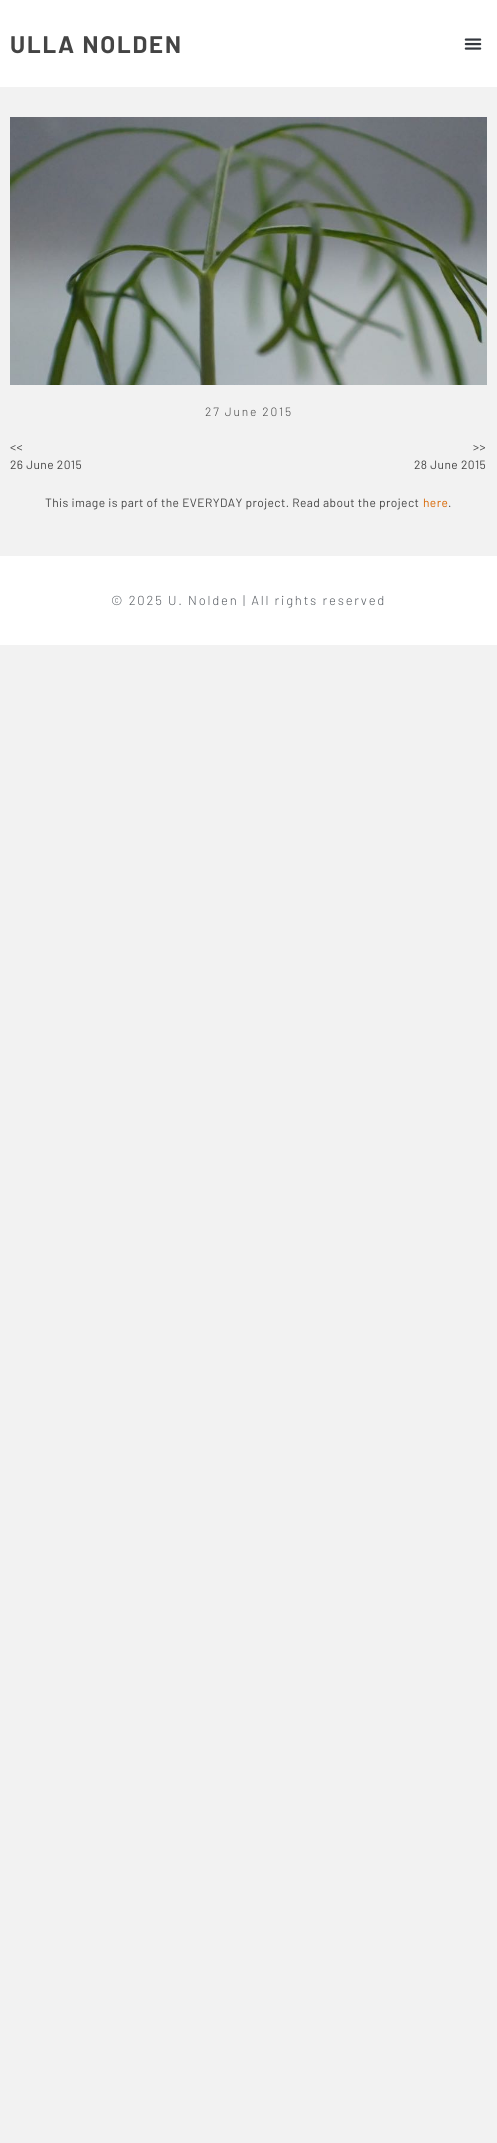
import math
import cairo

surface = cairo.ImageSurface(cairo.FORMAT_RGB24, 497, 2143)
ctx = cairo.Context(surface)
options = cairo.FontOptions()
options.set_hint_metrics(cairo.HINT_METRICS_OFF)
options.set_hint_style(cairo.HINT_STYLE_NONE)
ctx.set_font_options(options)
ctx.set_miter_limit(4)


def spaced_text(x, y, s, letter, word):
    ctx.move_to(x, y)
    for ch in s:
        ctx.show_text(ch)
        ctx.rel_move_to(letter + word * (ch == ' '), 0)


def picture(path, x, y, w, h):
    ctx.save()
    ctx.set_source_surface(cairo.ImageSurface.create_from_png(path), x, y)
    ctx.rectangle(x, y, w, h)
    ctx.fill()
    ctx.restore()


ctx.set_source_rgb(0.949, 0.949, 0.949)
ctx.paint()
ctx.set_source_rgb(1, 1, 1)
ctx.rectangle(0, 0, 497, 87)
ctx.fill()
ctx.select_font_face("Barlow", cairo.FONT_SLANT_NORMAL, cairo.FONT_WEIGHT_BOLD)
ctx.set_font_size(24)
ctx.set_source_rgb(0.267, 0.267, 0.267)
spaced_text(10, 53, "ULLA NOLDEN", 1.8, 0)
picture("img1.png", 464, 38, 18, 12)
picture("img2.png", 10, 117, 477, 268)
ctx.select_font_face("Barlow Light")
ctx.set_font_size(12)
spaced_text(205, 416, "27 June 2015", 1.8, 0)
ctx.select_font_face("Barlow")
spaced_text(10, 451, "<<", 0.4, 0)
spaced_text(10, 469, "26 June 2015", 0.4, 0)
spaced_text(473, 451, ">>", 0.4, 0)
spaced_text(414, 469, "28 June 2015", 0.4, 0)
spaced_text(45, 507, "This image is part of the EVERYDAY project. Read about the project", 0.4, 0)
ctx.set_source_rgb(0.843, 0.396, 0)
spaced_text(423, 507, "here", 0.4, 0)
ctx.set_source_rgb(0.267, 0.267, 0.267)
spaced_text(448, 507, ".", 0.4, 0)
ctx.set_source_rgb(1, 1, 1)
ctx.rectangle(0, 556, 497, 89)
ctx.fill()
ctx.select_font_face("Barlow Light")
ctx.set_font_size(13)
ctx.set_source_rgb(0.329, 0.349, 0.373)
spaced_text(111, 605, "© 2025 U. Nolden | All rights reserved", 1.8, 0)
surface.write_to_png("page.png")
